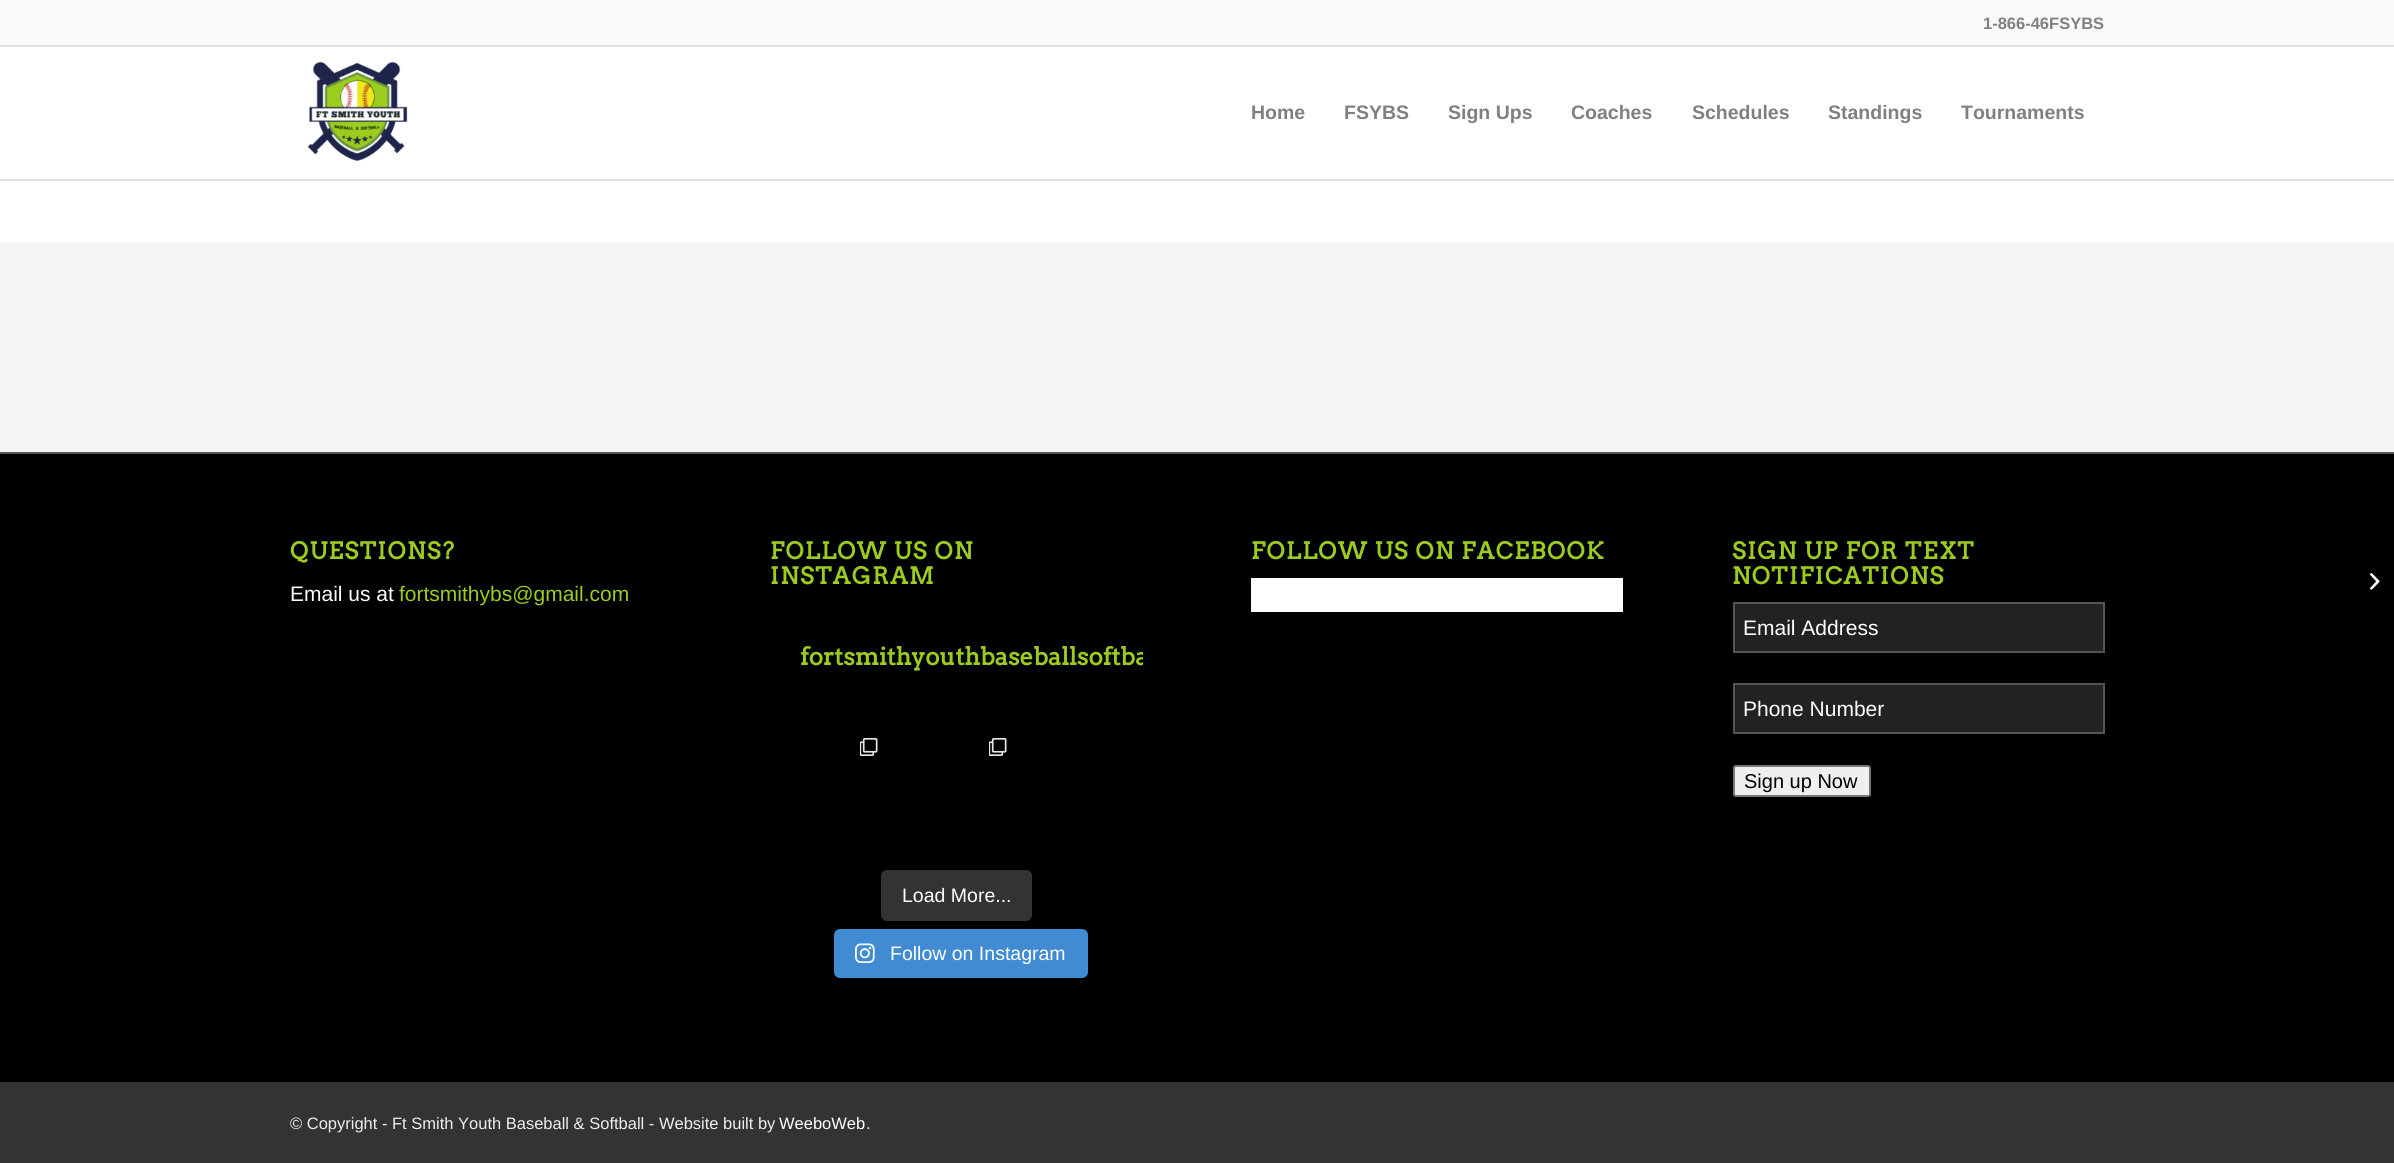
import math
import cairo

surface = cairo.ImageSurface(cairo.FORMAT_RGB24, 2394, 1163)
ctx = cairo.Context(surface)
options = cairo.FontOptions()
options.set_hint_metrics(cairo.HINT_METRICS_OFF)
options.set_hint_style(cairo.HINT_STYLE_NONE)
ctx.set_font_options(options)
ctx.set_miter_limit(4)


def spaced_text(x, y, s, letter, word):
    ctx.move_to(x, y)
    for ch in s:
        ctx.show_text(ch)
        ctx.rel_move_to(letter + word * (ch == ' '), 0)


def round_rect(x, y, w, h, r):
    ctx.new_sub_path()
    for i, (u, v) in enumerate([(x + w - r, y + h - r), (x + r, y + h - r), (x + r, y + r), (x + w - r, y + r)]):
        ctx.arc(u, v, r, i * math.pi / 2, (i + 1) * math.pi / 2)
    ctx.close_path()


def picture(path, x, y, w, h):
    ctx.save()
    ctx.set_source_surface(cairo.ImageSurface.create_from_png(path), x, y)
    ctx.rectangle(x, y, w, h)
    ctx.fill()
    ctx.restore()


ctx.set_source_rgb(1, 1, 1)
ctx.paint()
ctx.set_source_rgb(0.973, 0.973, 0.973)
ctx.rectangle(0, 0, 2394, 45)
ctx.fill()
ctx.set_source_rgb(0.882, 0.882, 0.882)
ctx.rectangle(0, 45, 2394, 2)
ctx.fill()
ctx.select_font_face("Liberation Sans", cairo.FONT_SLANT_NORMAL, cairo.FONT_WEIGHT_BOLD)
ctx.set_font_size(16.5)
ctx.set_source_rgb(0.502, 0.502, 0.502)
ctx.move_to(1983, 29)
ctx.show_text("1-866-46FSYBS")
ctx.set_source_rgb(0.882, 0.882, 0.882)
ctx.rectangle(0, 179, 2394, 2)
ctx.fill()
picture("img1.png", 307, 62, 101, 99)
ctx.set_font_size(19.5)
ctx.set_source_rgb(0.502, 0.502, 0.502)
ctx.move_to(1251, 119)
ctx.show_text("Home")
ctx.move_to(1344, 119)
ctx.show_text("FSYBS")
ctx.move_to(1448, 119)
ctx.show_text("Sign Ups")
ctx.move_to(1571, 119)
ctx.show_text("Coaches")
ctx.move_to(1692, 119)
ctx.show_text("Schedules")
ctx.move_to(1828, 119)
ctx.show_text("Standings")
ctx.move_to(1961, 119)
ctx.show_text("Tournaments")
ctx.set_source_rgb(0.957, 0.957, 0.957)
ctx.rectangle(0, 242, 2394, 210)
ctx.fill()
ctx.set_source_rgb(0, 0, 0)
ctx.rectangle(0, 454, 2394, 628)
ctx.fill()
ctx.set_source_rgb(0.333, 0.333, 0.333)
ctx.rectangle(0, 452, 2394, 2)
ctx.fill()
ctx.select_font_face("Arvo", cairo.FONT_SLANT_NORMAL, cairo.FONT_WEIGHT_BOLD)
ctx.set_font_size(23.1)
ctx.set_source_rgb(0.608, 0.8, 0.118)
spaced_text(290, 559, "QUESTIONS?", 1.5, 0)
ctx.select_font_face("Liberation Sans")
ctx.set_font_size(21)
ctx.set_source_rgb(1, 1, 1)
ctx.move_to(290, 601)
ctx.show_text("Email us at")
ctx.set_source_rgb(0.608, 0.8, 0.118)
ctx.move_to(399, 601)
ctx.show_text("fortsmithybs@gmail.com")
ctx.select_font_face("Arvo", cairo.FONT_SLANT_NORMAL, cairo.FONT_WEIGHT_BOLD)
ctx.set_font_size(23.1)
spaced_text(770, 559, "FOLLOW US ON", 1.5, 0)
spaced_text(770, 584, "INSTAGRAM", 1.5, 0)
ctx.save()
ctx.rectangle(771, 602, 372, 111)
ctx.clip()
ctx.set_font_size(24)
ctx.move_to(800, 665)
ctx.show_text("fortsmithyouthbaseballsoftba")
ctx.restore()
picture("img2.png", 860, 738, 18, 18)
picture("img2.png", 989, 738, 18, 18)
ctx.set_source_rgb(0.2, 0.2, 0.2)
round_rect(881, 870, 151, 51, 6)
ctx.fill()
ctx.select_font_face("Liberation Sans")
ctx.set_font_size(19.5)
ctx.set_source_rgb(1, 1, 1)
ctx.move_to(902, 902)
ctx.show_text("Load More...")
ctx.set_source_rgb(0.251, 0.545, 0.82)
round_rect(834, 929, 254, 49, 6)
ctx.fill()
picture("img3.png", 855, 943, 20, 20)
ctx.set_source_rgb(1, 1, 1)
ctx.move_to(890, 960)
ctx.show_text("Follow on Instagram")
ctx.select_font_face("Arvo", cairo.FONT_SLANT_NORMAL, cairo.FONT_WEIGHT_BOLD)
ctx.set_font_size(23.1)
ctx.set_source_rgb(0.608, 0.8, 0.118)
spaced_text(1251, 559, "FOLLOW US ON FACEBOOK", 1.5, 0)
ctx.set_source_rgb(1, 1, 1)
ctx.rectangle(1251, 578, 372, 34)
ctx.fill()
ctx.set_source_rgb(0.608, 0.8, 0.118)
spaced_text(1732, 559, "SIGN UP FOR TEXT", 1.5, 0)
spaced_text(1732, 584, "NOTIFICATIONS", 1.5, 0)
ctx.set_source_rgb(0.133, 0.133, 0.133)
ctx.rectangle(1734, 603, 370, 49)
ctx.fill_preserve()
ctx.set_source_rgb(0.333, 0.333, 0.333)
ctx.stroke()
ctx.select_font_face("Liberation Sans")
ctx.set_font_size(21)
ctx.set_source_rgb(1, 1, 1)
ctx.move_to(1743, 635)
ctx.show_text("Email Address")
ctx.set_source_rgb(0.133, 0.133, 0.133)
ctx.rectangle(1734, 684, 370, 49)
ctx.fill_preserve()
ctx.set_source_rgb(0.333, 0.333, 0.333)
ctx.stroke()
ctx.set_source_rgb(1, 1, 1)
ctx.move_to(1743, 716)
ctx.show_text("Phone Number")
ctx.set_source_rgb(0.937, 0.937, 0.937)
round_rect(1734, 766, 136, 30, 2)
ctx.fill_preserve()
ctx.set_source_rgb(0.463, 0.463, 0.463)
ctx.stroke()
ctx.set_font_size(20)
ctx.set_source_rgb(0, 0, 0)
ctx.move_to(1744, 788)
ctx.show_text("Sign up Now")
ctx.set_source_rgb(0.2, 0.2, 0.2)
ctx.rectangle(0, 1082, 2394, 81)
ctx.fill()
ctx.set_font_size(16.5)
ctx.set_source_rgb(0.933, 0.933, 0.933)
ctx.move_to(290, 1129)
ctx.show_text("© Copyright - Ft Smith Youth Baseball & Softball - Website built by")
ctx.set_source_rgb(1, 1, 1)
ctx.move_to(779, 1129)
ctx.show_text("WeeboWeb")
ctx.set_source_rgb(0.933, 0.933, 0.933)
ctx.move_to(866, 1129)
ctx.show_text(".")
picture("img4.png", 2370, 573, 10, 17)
surface.write_to_png("page.png")
